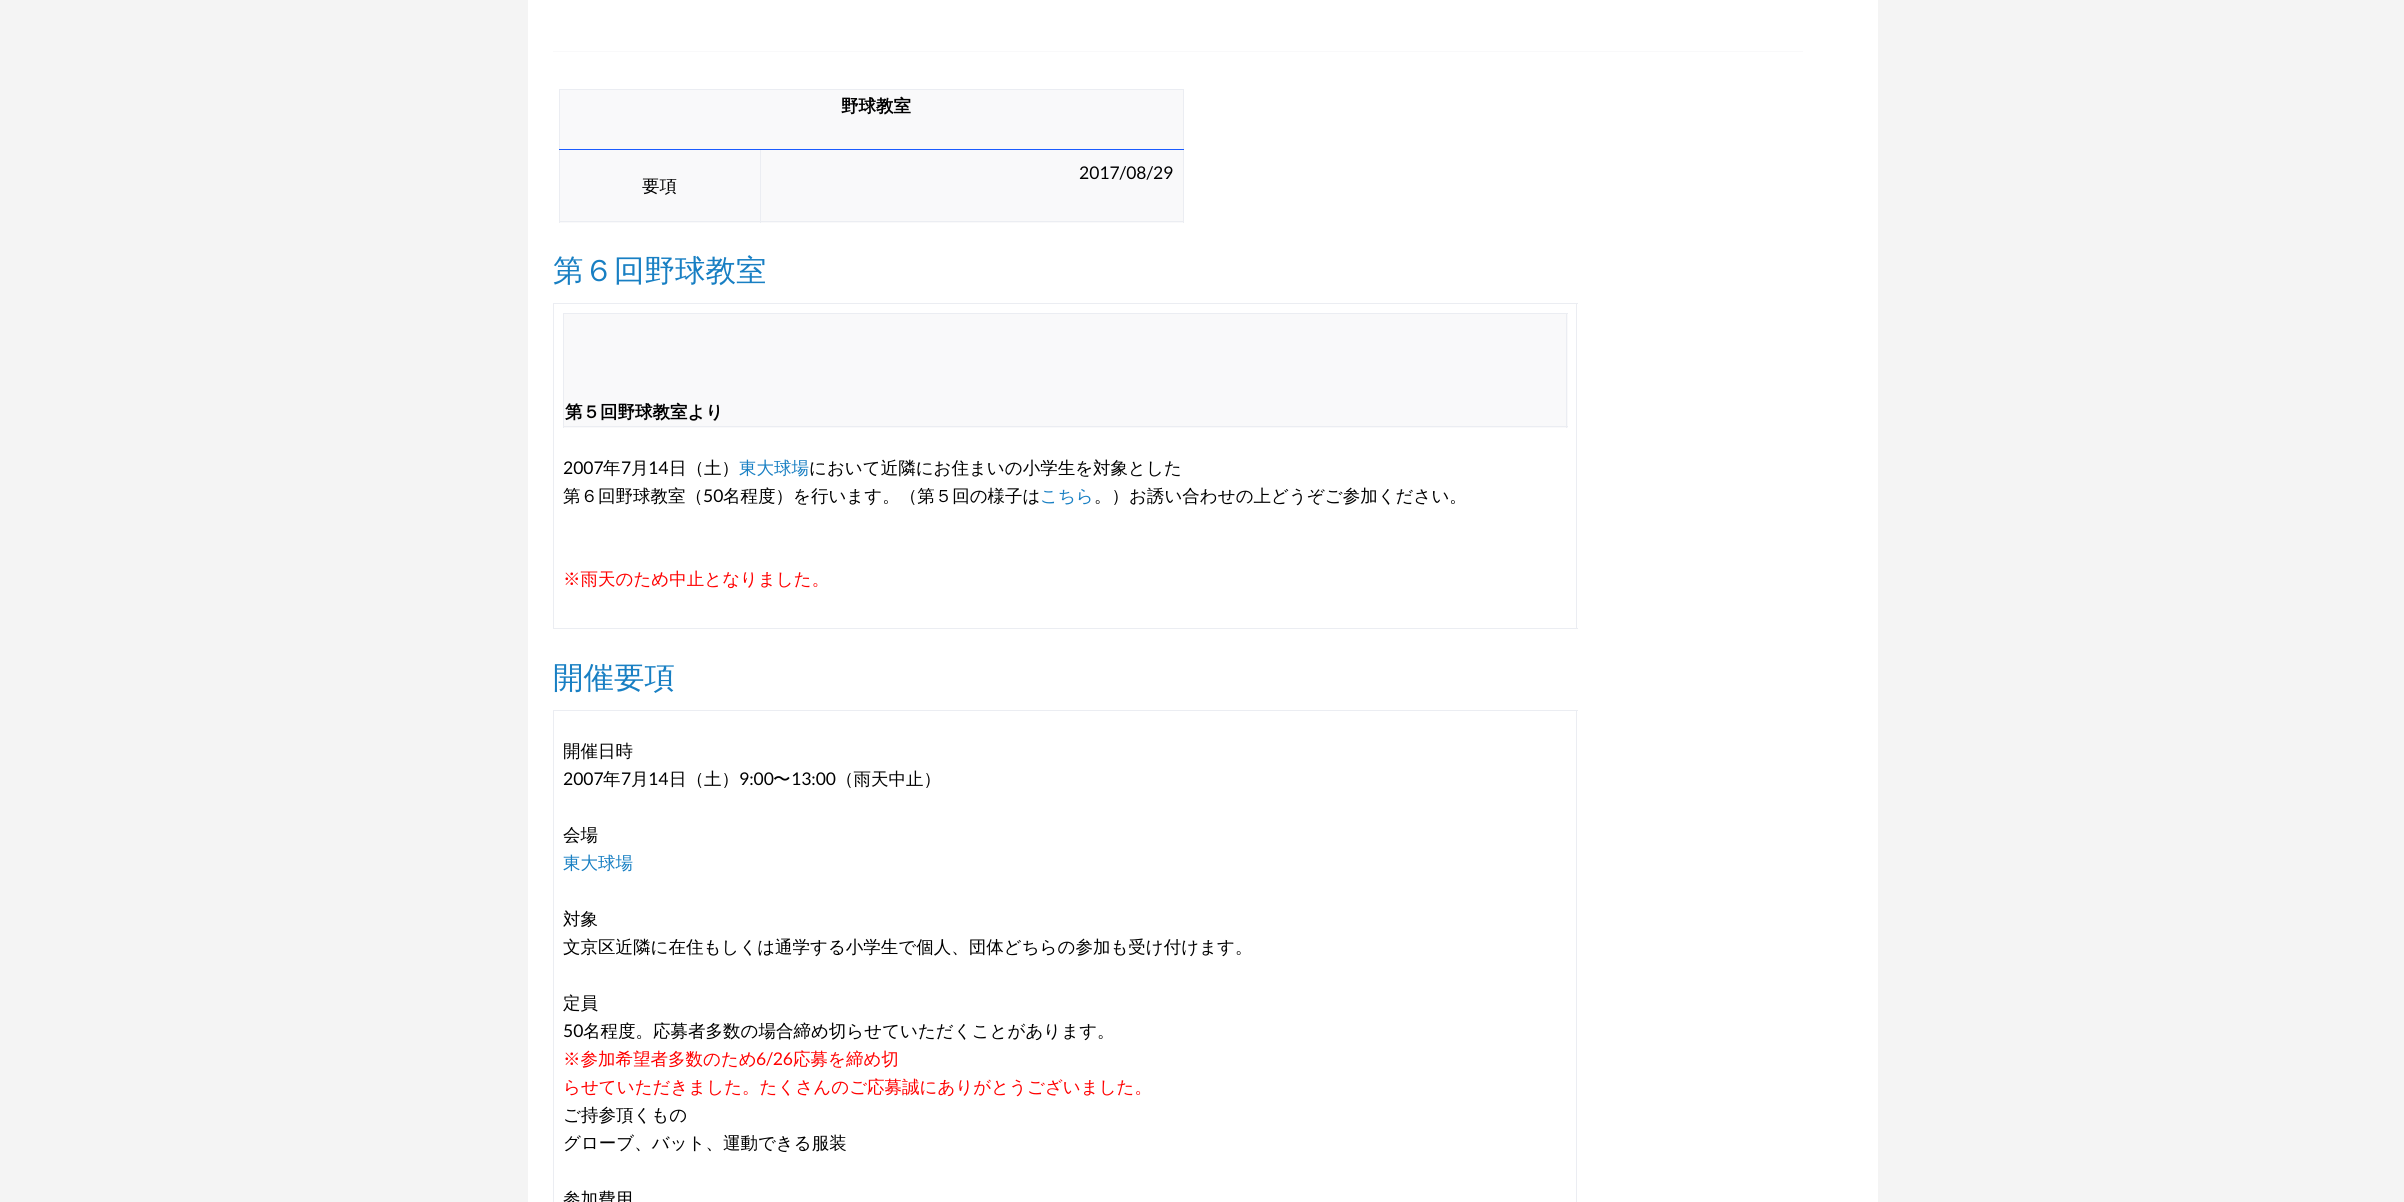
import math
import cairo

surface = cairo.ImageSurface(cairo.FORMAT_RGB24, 2404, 1202)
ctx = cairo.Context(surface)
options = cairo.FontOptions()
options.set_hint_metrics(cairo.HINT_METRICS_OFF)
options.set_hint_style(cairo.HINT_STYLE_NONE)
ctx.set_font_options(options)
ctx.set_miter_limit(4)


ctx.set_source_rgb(0.957, 0.957, 0.957)
ctx.paint()
ctx.set_source_rgb(1, 1, 1)
ctx.rectangle(528, 0, 1350, 1202)
ctx.fill()
ctx.set_source_rgb(0.973, 0.976, 0.98)
ctx.rectangle(553, 51, 1250, 1)
ctx.fill()
ctx.set_source_rgb(0.918, 0.929, 0.949)
ctx.rectangle(559, 89, 625, 1)
ctx.fill()
ctx.rectangle(1183, 89, 1, 134)
ctx.fill()
ctx.rectangle(559, 89, 1, 134)
ctx.fill()
ctx.set_source_rgb(0.973, 0.976, 0.98)
ctx.rectangle(560, 90, 623, 59)
ctx.fill()
ctx.rectangle(560, 150, 623, 73)
ctx.fill()
ctx.set_source_rgb(0.918, 0.929, 0.949)
ctx.rectangle(559, 221, 625, 1)
ctx.fill()
ctx.rectangle(760, 149, 1, 74)
ctx.fill()
ctx.set_source_rgb(0.102, 0.357, 1)
ctx.rectangle(559, 149, 625, 1)
ctx.fill()
ctx.select_font_face("WenQuanYi Zen Hei", cairo.FONT_SLANT_NORMAL, cairo.FONT_WEIGHT_BOLD)
ctx.set_font_size(17.5)
ctx.set_source_rgb(0, 0, 0)
ctx.move_to(841, 112)
ctx.show_text("野球教室")
ctx.select_font_face("Lato")
ctx.move_to(1079, 179)
ctx.show_text("2017/08/29")
ctx.select_font_face("WenQuanYi Zen Hei Medium")
ctx.move_to(642, 192)
ctx.show_text("要項")
ctx.set_font_size(30.5)
ctx.set_source_rgb(0.094, 0.498, 0.765)
ctx.move_to(553, 281)
ctx.show_text("第６回野球教室")
ctx.set_source_rgb(0.918, 0.929, 0.949)
ctx.rectangle(553, 303, 1025, 1)
ctx.fill()
ctx.rectangle(1576, 303, 1, 326)
ctx.fill()
ctx.rectangle(553, 628, 1025, 1)
ctx.fill()
ctx.rectangle(553, 303, 1, 326)
ctx.fill()
ctx.rectangle(563, 313, 1005, 1)
ctx.fill()
ctx.set_source_rgb(0.973, 0.976, 0.98)
ctx.rectangle(564, 314, 1004, 114)
ctx.fill()
ctx.set_source_rgb(0.918, 0.929, 0.949)
ctx.rectangle(1566, 313, 1, 115)
ctx.fill()
ctx.rectangle(563, 426, 1005, 1)
ctx.fill()
ctx.rectangle(563, 313, 1, 115)
ctx.fill()
ctx.select_font_face("WenQuanYi Zen Hei", cairo.FONT_SLANT_NORMAL, cairo.FONT_WEIGHT_BOLD)
ctx.set_font_size(17.5)
ctx.set_source_rgb(0, 0, 0)
ctx.move_to(565, 418)
ctx.show_text("第５回野球教室より")
ctx.select_font_face("Lato")
ctx.move_to(563, 474)
ctx.show_text("2007")
ctx.select_font_face("WenQuanYi Zen Hei Medium")
ctx.move_to(603, 474)
ctx.show_text("年")
ctx.select_font_face("Lato")
ctx.move_to(621, 474)
ctx.show_text("7")
ctx.select_font_face("WenQuanYi Zen Hei Medium")
ctx.move_to(631, 474)
ctx.show_text("月")
ctx.select_font_face("Lato")
ctx.move_to(648, 474)
ctx.show_text("14")
ctx.select_font_face("WenQuanYi Zen Hei Medium")
ctx.move_to(669, 474)
ctx.show_text("日（土）")
ctx.set_source_rgb(0.094, 0.498, 0.765)
ctx.move_to(739, 474)
ctx.show_text("東大球場")
ctx.set_source_rgb(0, 0, 0)
ctx.move_to(809, 474)
ctx.show_text("において近隣にお住まいの小学生を対象とした")
ctx.move_to(563, 502)
ctx.show_text("第６回野球教室（")
ctx.select_font_face("Lato")
ctx.move_to(703, 502)
ctx.show_text("50")
ctx.select_font_face("WenQuanYi Zen Hei Medium")
ctx.move_to(723, 502)
ctx.show_text("名程度）を行います。（第５回の様子は")
ctx.set_source_rgb(0.094, 0.498, 0.765)
ctx.move_to(1040, 502)
ctx.show_text("こちら")
ctx.set_source_rgb(0, 0, 0)
ctx.move_to(1094, 502)
ctx.show_text("。）お誘い合わせの上どうぞご参加ください。")
ctx.set_source_rgb(1, 0, 0)
ctx.move_to(563, 585)
ctx.show_text("※雨天のため中止となりました。")
ctx.set_font_size(30.5)
ctx.set_source_rgb(0.094, 0.498, 0.765)
ctx.move_to(553, 688)
ctx.show_text("開催要項")
ctx.set_source_rgb(0.918, 0.929, 0.949)
ctx.rectangle(553, 710, 1025, 1)
ctx.fill()
ctx.rectangle(1576, 710, 1, 492)
ctx.fill()
ctx.rectangle(553, 710, 1, 492)
ctx.fill()
ctx.set_font_size(17.5)
ctx.set_source_rgb(0, 0, 0)
ctx.move_to(563, 757)
ctx.show_text("開催日時")
ctx.select_font_face("Lato")
ctx.move_to(563, 785)
ctx.show_text("2007")
ctx.select_font_face("WenQuanYi Zen Hei Medium")
ctx.move_to(603, 785)
ctx.show_text("年")
ctx.select_font_face("Lato")
ctx.move_to(621, 785)
ctx.show_text("7")
ctx.select_font_face("WenQuanYi Zen Hei Medium")
ctx.move_to(631, 785)
ctx.show_text("月")
ctx.select_font_face("Lato")
ctx.move_to(648, 785)
ctx.show_text("14")
ctx.select_font_face("WenQuanYi Zen Hei Medium")
ctx.move_to(669, 785)
ctx.show_text("日（土）")
ctx.select_font_face("Lato")
ctx.move_to(739, 785)
ctx.show_text("9:00")
ctx.select_font_face("WenQuanYi Zen Hei Medium")
ctx.move_to(773, 785)
ctx.show_text("〜")
ctx.select_font_face("Lato")
ctx.move_to(791, 785)
ctx.show_text("13:00")
ctx.select_font_face("WenQuanYi Zen Hei Medium")
ctx.move_to(836, 785)
ctx.show_text("（雨天中止）")
ctx.move_to(563, 841)
ctx.show_text("会場")
ctx.set_source_rgb(0.094, 0.498, 0.765)
ctx.move_to(563, 869)
ctx.show_text("東大球場")
ctx.set_source_rgb(0, 0, 0)
ctx.move_to(563, 925)
ctx.show_text("対象")
ctx.move_to(563, 953)
ctx.show_text("文京区近隣に在住もしくは通学する小学生で個人、団体どちらの参加も受け付けます。")
ctx.move_to(563, 1009)
ctx.show_text("定員")
ctx.select_font_face("Lato")
ctx.move_to(563, 1037)
ctx.show_text("50")
ctx.select_font_face("WenQuanYi Zen Hei Medium")
ctx.move_to(583, 1037)
ctx.show_text("名程度。応募者多数の場合締め切らせていただくことがあります。")
ctx.set_source_rgb(1, 0, 0)
ctx.move_to(563, 1065)
ctx.show_text("※参加希望者多数のため")
ctx.select_font_face("Lato")
ctx.move_to(756, 1065)
ctx.show_text("6/26")
ctx.select_font_face("WenQuanYi Zen Hei Medium")
ctx.move_to(793, 1065)
ctx.show_text("応募を締め切")
ctx.move_to(563, 1093)
ctx.show_text("らせていただきました。たくさんのご応募誠にありがとうございました。")
ctx.set_source_rgb(0, 0, 0)
ctx.move_to(563, 1121)
ctx.show_text("ご持参頂くもの")
ctx.move_to(563, 1149)
ctx.show_text("グローブ、バット、運動できる服装")
ctx.move_to(563, 1205)
ctx.show_text("参加費用")
surface.write_to_png("page.png")
